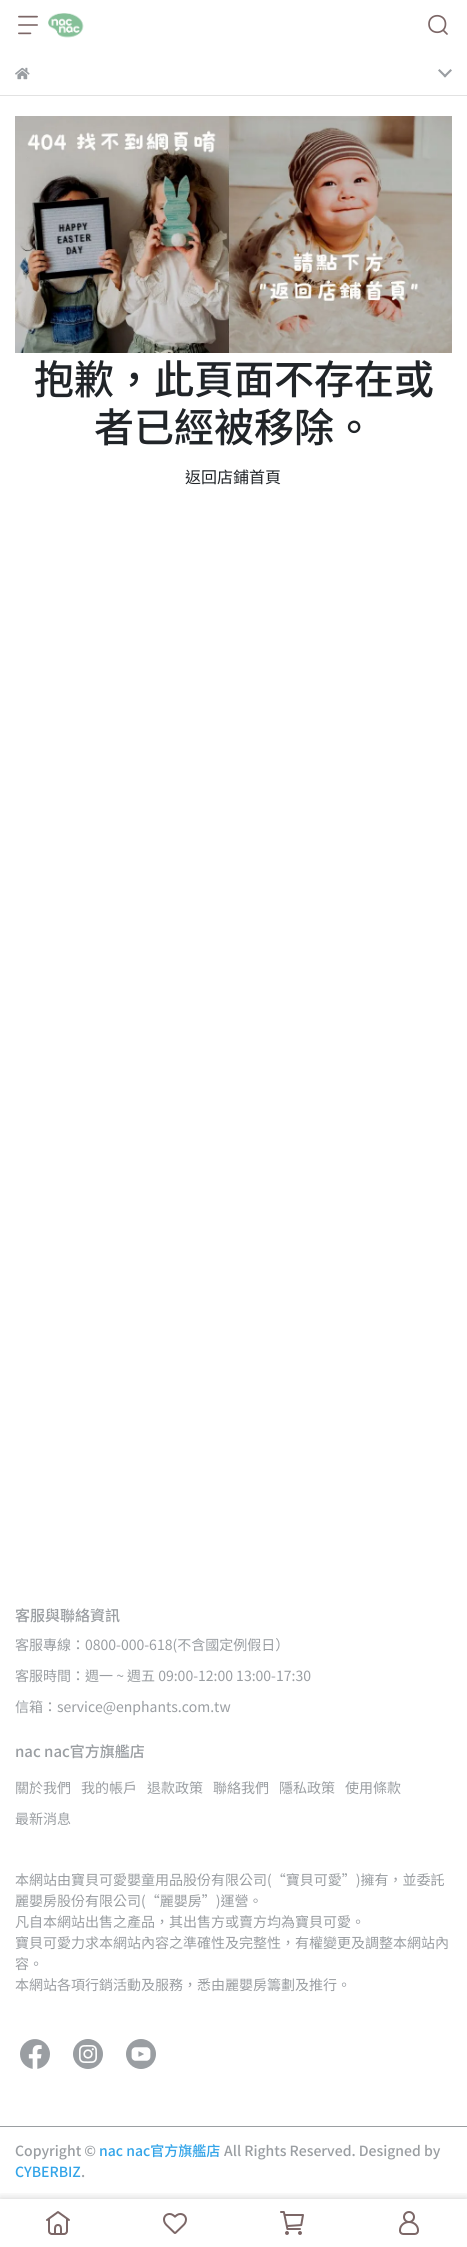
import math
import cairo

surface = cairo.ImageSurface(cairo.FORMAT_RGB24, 467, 2247)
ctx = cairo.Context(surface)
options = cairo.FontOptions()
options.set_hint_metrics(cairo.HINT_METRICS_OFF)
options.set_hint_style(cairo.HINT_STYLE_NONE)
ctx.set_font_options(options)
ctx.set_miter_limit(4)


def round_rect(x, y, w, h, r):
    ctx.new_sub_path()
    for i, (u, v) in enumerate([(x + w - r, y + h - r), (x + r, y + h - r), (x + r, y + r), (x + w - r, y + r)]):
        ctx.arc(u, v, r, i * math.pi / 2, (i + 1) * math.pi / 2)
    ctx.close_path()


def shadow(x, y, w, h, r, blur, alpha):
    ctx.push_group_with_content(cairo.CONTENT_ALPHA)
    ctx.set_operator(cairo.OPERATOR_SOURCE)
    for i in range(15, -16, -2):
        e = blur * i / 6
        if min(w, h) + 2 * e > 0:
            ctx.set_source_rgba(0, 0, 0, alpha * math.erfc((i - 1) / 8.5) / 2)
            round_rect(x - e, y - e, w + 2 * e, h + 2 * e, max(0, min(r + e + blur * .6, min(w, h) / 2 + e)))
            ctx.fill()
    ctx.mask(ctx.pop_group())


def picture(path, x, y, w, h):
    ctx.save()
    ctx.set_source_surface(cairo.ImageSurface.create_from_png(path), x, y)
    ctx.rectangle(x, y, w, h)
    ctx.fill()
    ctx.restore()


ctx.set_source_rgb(1, 1, 1)
ctx.paint()
picture("img1.png", 18, 15, 20, 20)
picture("img2.png", 48, 13, 36, 25)
ctx.new_path()
ctx.move_to(445.5, 24)
ctx.curve_to(445.5, 35, 429, 35, 429, 24)
ctx.curve_to(429, 13, 445.5, 13, 445.5, 24)
ctx.close_path()
ctx.move_to(444, 31)
ctx.line_to(447, 34)
ctx.set_source_rgb(0.486, 0.404, 0.404)
ctx.set_line_width(1.7)
ctx.set_line_cap(cairo.LINE_CAP_ROUND)
ctx.set_line_join(cairo.LINE_JOIN_ROUND)
ctx.stroke()
ctx.save()
ctx.rectangle(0, 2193, 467, 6)
ctx.clip()
ctx.set_source_rgb(0, 0, 0)
shadow(0, 2199, 467, 48, 0, 5, 0.2)
ctx.restore()
picture("img3.png", 46, 2211, 24, 24)
picture("img4.png", 163, 2213, 24, 21)
picture("img5.png", 280, 2211, 24, 24)
picture("img6.png", 399, 2211, 20, 24)
ctx.set_source_rgb(0.886, 0.886, 0.886)
ctx.rectangle(0, 95, 467, 1)
ctx.fill()
picture("img7.png", 15, 67, 15, 13)
ctx.set_source_rgb(0.604, 0.62, 0.635)
ctx.new_path()
ctx.move_to(443.5, 76)
ctx.line_to(450.5, 69)
ctx.line_to(452, 70.5)
ctx.line_to(445, 77.5)
ctx.close_path()
ctx.fill()
ctx.new_path()
ctx.move_to(438, 70.5)
ctx.line_to(439.5, 69)
ctx.line_to(446.5, 76)
ctx.line_to(445, 77.5)
ctx.close_path()
ctx.fill()
picture("img8.png", 15, 116, 437, 237)
ctx.select_font_face("Noto Sans TC Medium")
ctx.set_font_size(40)
ctx.set_source_rgb(0.129, 0.145, 0.161)
ctx.move_to(34, 394)
ctx.show_text("抱歉，此頁面不存在或")
ctx.move_to(94, 442)
ctx.show_text("者已經被移除。")
ctx.select_font_face("Noto Sans TC")
ctx.set_font_size(16)
ctx.move_to(185, 483)
ctx.show_text("返回店鋪首頁")
ctx.select_font_face("Noto Sans TC Medium")
ctx.set_font_size(15)
ctx.set_source_rgb(0.604, 0.62, 0.635)
ctx.move_to(15, 1621)
ctx.show_text("客服與聯絡資訊")
ctx.select_font_face("Noto Sans TC")
ctx.set_font_size(14)
ctx.move_to(15, 1650)
ctx.show_text("客服專線：0800-000-618(不含國定例假日）")
ctx.move_to(15, 1681)
ctx.show_text("客服時間：週一 ~ 週五 09:00-12:00 13:00-17:30")
ctx.move_to(15, 1712)
ctx.show_text("信箱：service@enphants.com.tw")
ctx.select_font_face("Noto Sans TC Medium")
ctx.set_font_size(15)
ctx.move_to(15, 1757)
ctx.show_text("nac nac官方旗艦店")
ctx.select_font_face("Noto Sans TC")
ctx.set_font_size(14)
ctx.move_to(15, 1793)
ctx.show_text("關於我們")
ctx.move_to(81, 1793)
ctx.show_text("我的帳戶")
ctx.move_to(147, 1793)
ctx.show_text("退款政策")
ctx.move_to(213, 1793)
ctx.show_text("聯絡我們")
ctx.move_to(279, 1793)
ctx.show_text("隱私政策")
ctx.move_to(345, 1793)
ctx.show_text("使用條款")
ctx.move_to(15, 1824)
ctx.show_text("最新消息")
ctx.move_to(15, 1885)
ctx.show_text("本網站由寶貝可愛嬰童用品股份有限公司(“寶貝可愛”)擁有，並委託")
ctx.move_to(15, 1906)
ctx.show_text("麗嬰房股份有限公司(“麗嬰房”)運營。")
ctx.move_to(15, 1927)
ctx.show_text("凡自本網站出售之產品，其出售方或賣方均為寶貝可愛。")
ctx.move_to(15, 1948)
ctx.show_text("寶貝可愛力求本網站內容之準確性及完整性，有權變更及調整本網站內")
ctx.move_to(15, 1969)
ctx.show_text("容。")
ctx.move_to(15, 1990)
ctx.show_text("本網站各項行銷活動及服務，悉由麗嬰房籌劃及推行。")
picture("img9.png", 20, 2039, 30, 30)
picture("img10.png", 73, 2039, 30, 30)
picture("img11.png", 126, 2039, 30, 30)
ctx.rectangle(0, 2126, 467, 1)
ctx.fill()
ctx.select_font_face("Noto Sans TC Medium")
ctx.move_to(15, 2156)
ctx.show_text("Copyright ©")
ctx.set_source_rgb(0.2, 0.643, 0.91)
ctx.move_to(99, 2156)
ctx.show_text("nac nac官方旗艦店")
ctx.set_source_rgb(0.604, 0.62, 0.635)
ctx.move_to(224, 2156)
ctx.show_text("All Rights Reserved. Designed by")
ctx.set_source_rgb(0.2, 0.643, 0.91)
ctx.move_to(15, 2177)
ctx.show_text("CYBERBIZ")
ctx.set_source_rgb(0.604, 0.62, 0.635)
ctx.move_to(81, 2177)
ctx.show_text(".")
surface.write_to_png("page.png")
